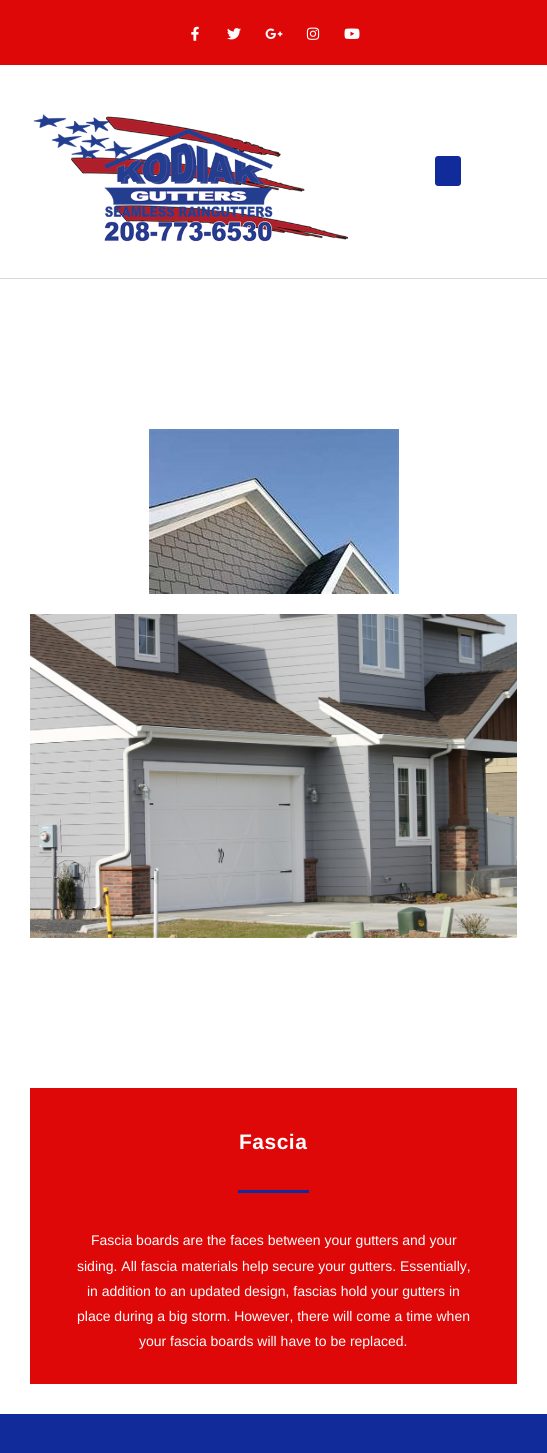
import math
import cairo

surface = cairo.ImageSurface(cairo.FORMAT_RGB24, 547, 1453)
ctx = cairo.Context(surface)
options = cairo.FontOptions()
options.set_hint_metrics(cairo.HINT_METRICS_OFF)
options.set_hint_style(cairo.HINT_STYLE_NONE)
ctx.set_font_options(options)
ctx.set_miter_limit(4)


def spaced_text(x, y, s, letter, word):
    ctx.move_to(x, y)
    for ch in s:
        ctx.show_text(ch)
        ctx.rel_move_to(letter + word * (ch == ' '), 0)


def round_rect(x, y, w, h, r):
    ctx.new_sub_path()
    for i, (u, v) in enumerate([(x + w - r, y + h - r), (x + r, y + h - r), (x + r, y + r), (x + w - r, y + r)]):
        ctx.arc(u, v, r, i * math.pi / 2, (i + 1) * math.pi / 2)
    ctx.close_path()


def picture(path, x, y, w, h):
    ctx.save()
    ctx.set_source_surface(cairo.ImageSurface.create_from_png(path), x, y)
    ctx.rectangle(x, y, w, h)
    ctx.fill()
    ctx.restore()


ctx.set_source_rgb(1, 1, 1)
ctx.paint()
ctx.set_source_rgb(0.875, 0.035, 0.035)
ctx.rectangle(0, 0, 547, 65)
ctx.fill()
picture("img1.png", 191, 26, 8, 15)
picture("img2.png", 227, 28, 14, 12)
picture("img3.png", 265, 28, 18, 11)
picture("img4.png", 306, 27, 14, 13)
picture("img5.png", 344, 28, 16, 11)
ctx.set_source_rgb(0.847, 0.847, 0.847)
ctx.rectangle(0, 278, 547, 1)
ctx.fill()
picture("img6.png", 33, 114, 315, 128)
ctx.set_source_rgb(0.067, 0.173, 0.604)
round_rect(435, 156, 26, 30, 3)
ctx.fill()
picture("img7.png", 149, 429, 250, 165)
picture("img8.png", 30, 614, 487, 324)
ctx.set_source_rgb(0.875, 0.035, 0.035)
ctx.rectangle(30, 1088, 487, 296)
ctx.fill()
ctx.select_font_face("Liberation Sans", cairo.FONT_SLANT_NORMAL, cairo.FONT_WEIGHT_BOLD)
ctx.set_font_size(21)
ctx.set_source_rgb(1, 1, 1)
spaced_text(239, 1149, "Fascia", 0.5, 0)
ctx.set_source_rgb(0.067, 0.173, 0.604)
ctx.rectangle(238, 1190, 71, 3)
ctx.fill()
ctx.select_font_face("Liberation Sans")
ctx.set_font_size(14)
ctx.set_source_rgb(1, 1, 1)
ctx.move_to(91, 1245)
ctx.show_text("Fascia boards are the faces between your gutters and your")
ctx.move_to(77, 1271)
ctx.show_text("siding. All fascia materials help secure your gutters. Essentially,")
ctx.move_to(87, 1296)
ctx.show_text("in addition to an updated design, fascias hold your gutters in")
ctx.move_to(77, 1321)
ctx.show_text("place during a big storm. However, there will come a time when")
ctx.move_to(139, 1346)
ctx.show_text("your fascia boards will have to be replaced.")
ctx.set_source_rgb(0.067, 0.173, 0.604)
ctx.rectangle(0, 1414, 547, 39)
ctx.fill()
surface.write_to_png("page.png")
